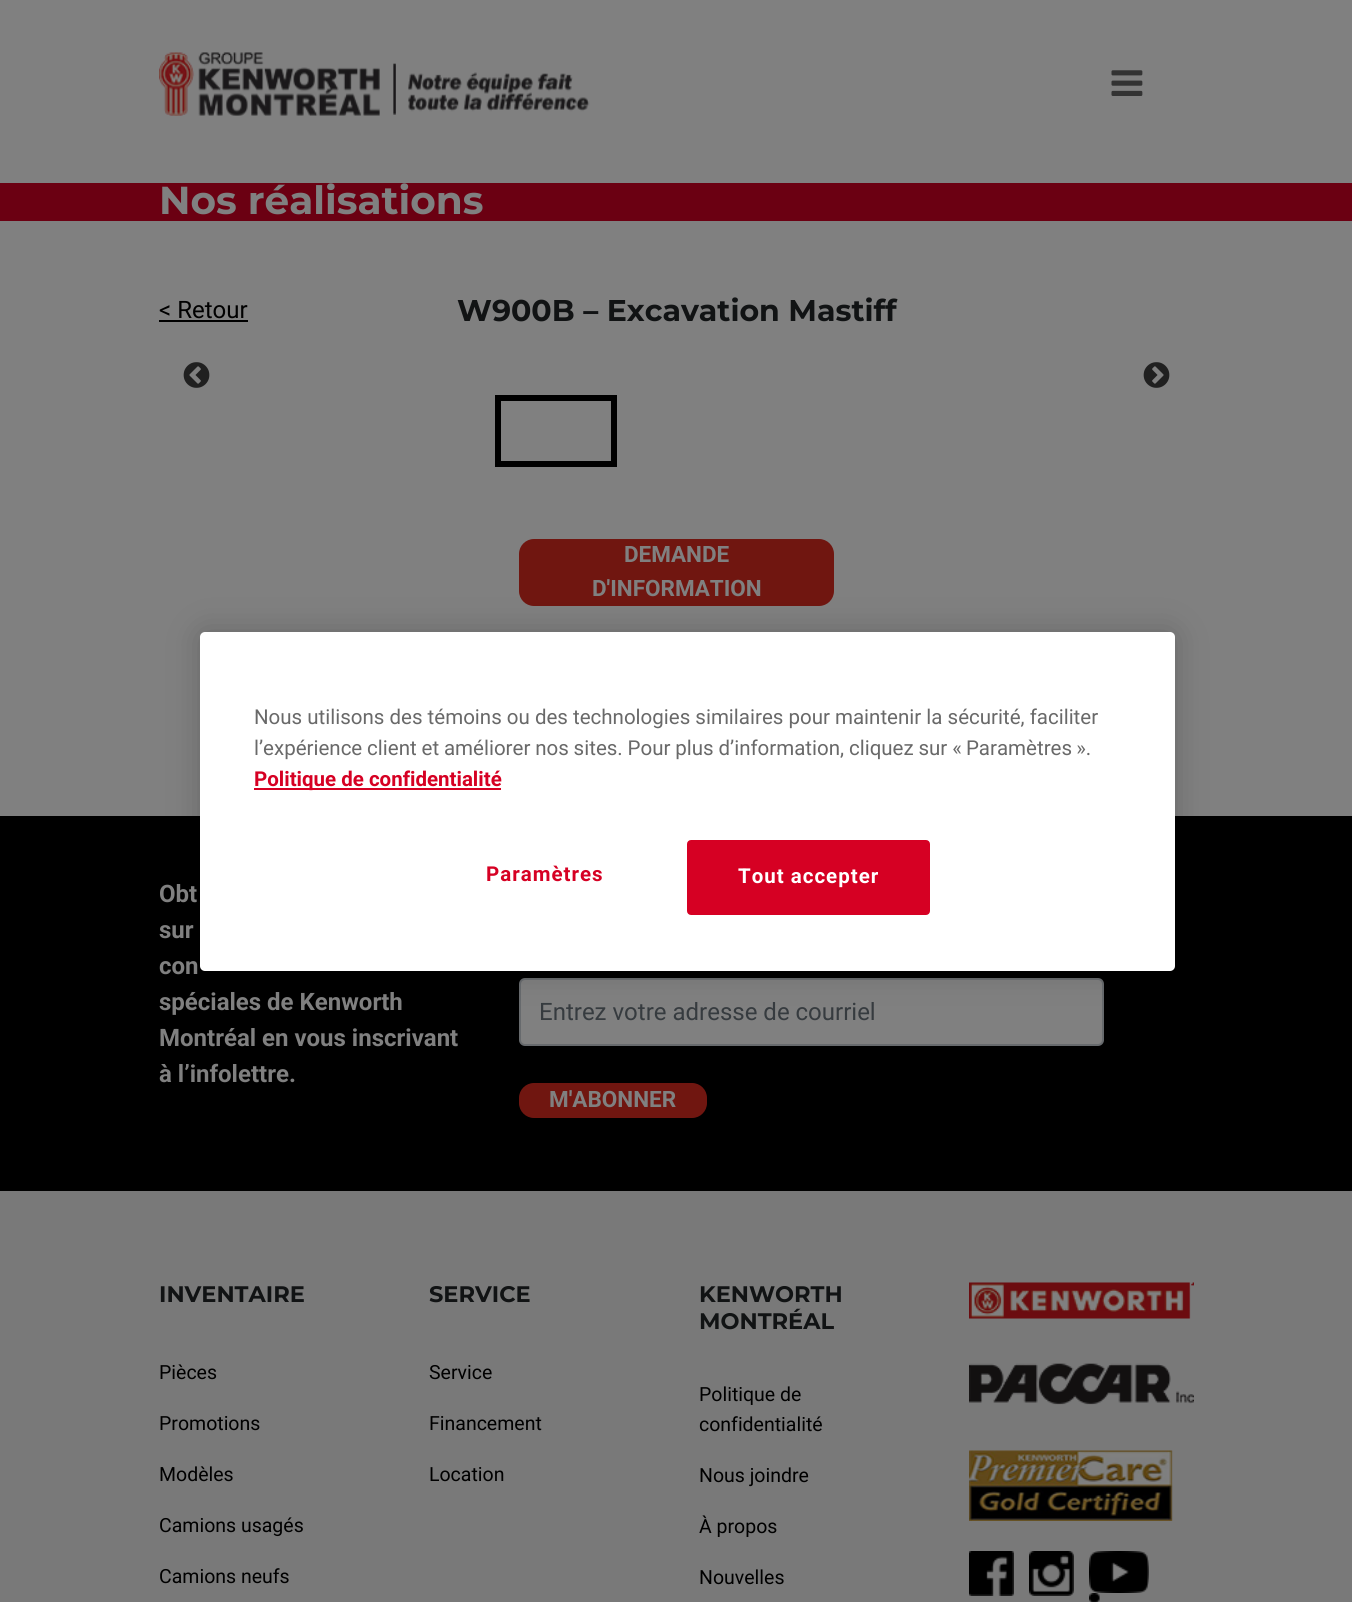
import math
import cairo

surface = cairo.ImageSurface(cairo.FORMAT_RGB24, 1352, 1602)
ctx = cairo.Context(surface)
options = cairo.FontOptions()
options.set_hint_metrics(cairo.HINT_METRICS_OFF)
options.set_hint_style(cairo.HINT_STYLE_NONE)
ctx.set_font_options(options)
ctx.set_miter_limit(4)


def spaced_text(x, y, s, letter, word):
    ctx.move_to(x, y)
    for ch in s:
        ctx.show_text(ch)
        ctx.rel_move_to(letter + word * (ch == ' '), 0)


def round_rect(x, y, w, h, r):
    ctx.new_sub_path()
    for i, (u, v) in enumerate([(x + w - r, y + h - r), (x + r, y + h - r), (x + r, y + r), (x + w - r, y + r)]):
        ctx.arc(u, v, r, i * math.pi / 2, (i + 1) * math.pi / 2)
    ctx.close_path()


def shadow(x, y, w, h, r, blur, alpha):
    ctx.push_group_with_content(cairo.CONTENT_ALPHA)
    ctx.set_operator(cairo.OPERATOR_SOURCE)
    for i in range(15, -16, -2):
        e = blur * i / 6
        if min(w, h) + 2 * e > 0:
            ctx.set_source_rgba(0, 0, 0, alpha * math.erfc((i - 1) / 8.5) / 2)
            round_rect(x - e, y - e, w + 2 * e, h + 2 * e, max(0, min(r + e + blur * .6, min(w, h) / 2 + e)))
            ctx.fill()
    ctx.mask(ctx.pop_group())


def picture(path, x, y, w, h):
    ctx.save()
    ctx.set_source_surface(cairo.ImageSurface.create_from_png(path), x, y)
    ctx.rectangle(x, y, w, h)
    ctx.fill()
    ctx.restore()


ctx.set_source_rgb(0.502, 0.502, 0.502)
ctx.paint()
picture("img1.png", 159, 52, 431, 64)
picture("img2.png", 1111, 70, 32, 26)
ctx.set_source_rgb(0.42, 0, 0.071)
ctx.rectangle(0, 183, 1352, 38)
ctx.fill()
ctx.select_font_face("Montserrat", cairo.FONT_SLANT_NORMAL, cairo.FONT_WEIGHT_BOLD)
ctx.set_font_size(39)
ctx.set_source_rgb(0.502, 0.502, 0.502)
ctx.move_to(159, 214)
ctx.show_text("Nos réalisations")
ctx.select_font_face("Roboto")
ctx.set_font_size(24)
ctx.set_source_rgb(0, 0, 0)
ctx.move_to(159, 318)
ctx.show_text("< Retour")
ctx.rectangle(159, 320, 89, 2)
ctx.fill()
ctx.select_font_face("Montserrat", cairo.FONT_SLANT_NORMAL, cairo.FONT_WEIGHT_BOLD)
ctx.set_font_size(30)
ctx.set_source_rgb(0.067, 0.075, 0.082)
ctx.move_to(457, 321)
ctx.show_text("W900B – Excavation Mastiff")
picture("img3.png", 183, 362, 27, 26)
picture("img4.png", 1143, 362, 27, 26)
ctx.rectangle(498, 398, 116, 66)
ctx.set_source_rgb(0, 0, 0)
ctx.set_line_width(6)
ctx.stroke()
ctx.set_source_rgb(0.439, 0.086, 0.063)
round_rect(519, 539, 315, 67, 15)
ctx.fill()
ctx.select_font_face("Roboto", cairo.FONT_SLANT_NORMAL, cairo.FONT_WEIGHT_BOLD)
ctx.set_font_size(22.5)
ctx.set_source_rgb(0.502, 0.502, 0.502)
ctx.move_to(624, 562)
ctx.show_text("DEMANDE")
ctx.move_to(592, 596)
ctx.show_text("D'INFORMATION")
ctx.set_source_rgb(0, 0, 0)
ctx.rectangle(0, 816, 1352, 375)
ctx.fill()
ctx.set_source_rgb(0.502, 0.502, 0.502)
round_rect(520, 979, 583, 66, 5)
ctx.fill_preserve()
ctx.set_source_rgb(0.404, 0.416, 0.427)
ctx.set_line_width(2)
ctx.stroke()
ctx.set_source_rgb(0, 0, 0)
shadow(200, 632, 975, 339, 5, 16, 0.2)
ctx.set_source_rgb(1, 1, 1)
round_rect(200, 632, 975, 339, 5)
ctx.fill()
ctx.select_font_face("Roboto")
ctx.set_font_size(20.5)
ctx.set_source_rgb(0.412, 0.412, 0.412)
ctx.move_to(254, 724)
ctx.show_text("Nous utilisons des témoins ou des technologies similaires pour maintenir la sécurité, faciliter")
spaced_text(254, 755, "l’expérience client et améliorer nos sites. Pour plus d’information, cliquez sur « Paramètres ».", 0, -0.25)
ctx.set_source_rgb(0.839, 0, 0.137)
ctx.rectangle(254, 788, 247, 2)
ctx.fill()
ctx.select_font_face("Roboto", cairo.FONT_SLANT_NORMAL, cairo.FONT_WEIGHT_BOLD)
ctx.move_to(254, 786)
ctx.show_text("Politique de confidentialité")
spaced_text(486, 881, "Paramètres", 1, 0)
round_rect(688, 841, 241, 73, 3)
ctx.fill_preserve()
ctx.stroke()
ctx.set_source_rgb(1, 1, 1)
spaced_text(738, 883, "Tout accepter", 1, 0)
ctx.set_font_size(24)
ctx.set_source_rgb(0.502, 0.502, 0.502)
ctx.move_to(159, 902)
ctx.show_text("Obt")
ctx.move_to(159, 938)
ctx.show_text("sur")
ctx.move_to(159, 974)
ctx.show_text("con")
ctx.move_to(159, 1010)
ctx.show_text("spéciales de Kenworth")
ctx.move_to(159, 1046)
ctx.show_text("Montréal en vous inscrivant")
ctx.move_to(159, 1082)
ctx.show_text("à l’infolettre.")
ctx.select_font_face("Roboto")
ctx.set_source_rgb(0.212, 0.231, 0.247)
ctx.move_to(539, 1020)
ctx.show_text("Entrez votre adresse de courriel")
ctx.set_source_rgb(0.439, 0.086, 0.063)
round_rect(519, 1083, 188, 35, 15)
ctx.fill()
ctx.select_font_face("Roboto", cairo.FONT_SLANT_NORMAL, cairo.FONT_WEIGHT_BOLD)
ctx.set_font_size(22.5)
ctx.set_source_rgb(0.502, 0.502, 0.502)
ctx.move_to(549, 1107)
ctx.show_text("M'ABONNER")
ctx.set_source_rgb(0.475, 0.475, 0.475)
ctx.rectangle(0, 1191, 1352, 411)
ctx.fill()
ctx.select_font_face("Montserrat", cairo.FONT_SLANT_NORMAL, cairo.FONT_WEIGHT_BOLD)
ctx.set_source_rgb(0.067, 0.075, 0.082)
ctx.move_to(159, 1302)
ctx.show_text("INVENTAIRE")
ctx.select_font_face("Roboto")
ctx.set_font_size(19.5)
ctx.set_source_rgb(0, 0, 0)
ctx.move_to(159, 1379)
ctx.show_text("Pièces")
ctx.move_to(159, 1430)
ctx.show_text("Promotions")
ctx.move_to(159, 1481)
ctx.show_text("Modèles")
ctx.move_to(159, 1532)
ctx.show_text("Camions usagés")
ctx.move_to(159, 1583)
ctx.show_text("Camions neufs")
ctx.select_font_face("Montserrat", cairo.FONT_SLANT_NORMAL, cairo.FONT_WEIGHT_BOLD)
ctx.set_font_size(22.5)
ctx.set_source_rgb(0.067, 0.075, 0.082)
ctx.move_to(429, 1302)
ctx.show_text("SERVICE")
ctx.select_font_face("Roboto")
ctx.set_font_size(19.5)
ctx.set_source_rgb(0, 0, 0)
ctx.move_to(429, 1379)
ctx.show_text("Service")
ctx.move_to(429, 1430)
ctx.show_text("Financement")
ctx.move_to(429, 1481)
ctx.show_text("Location")
ctx.select_font_face("Montserrat", cairo.FONT_SLANT_NORMAL, cairo.FONT_WEIGHT_BOLD)
ctx.set_font_size(22.5)
ctx.set_source_rgb(0.067, 0.075, 0.082)
ctx.move_to(699, 1302)
ctx.show_text("KENWORTH")
ctx.move_to(699, 1329)
ctx.show_text("MONTRÉAL")
ctx.select_font_face("Roboto")
ctx.set_font_size(19.5)
ctx.set_source_rgb(0, 0, 0)
ctx.move_to(699, 1401)
ctx.show_text("Politique de")
ctx.move_to(699, 1431)
ctx.show_text("confidentialité")
ctx.move_to(699, 1482)
ctx.show_text("Nous joindre")
ctx.move_to(699, 1533)
ctx.show_text("À propos")
ctx.move_to(699, 1584)
ctx.show_text("Nouvelles")
picture("img5.png", 969, 1282, 225, 37)
picture("img6.png", 969, 1363, 225, 42)
picture("img7.png", 969, 1450, 204, 71)
picture("img8.png", 969, 1551, 45, 45)
picture("img9.png", 1029, 1551, 45, 45)
picture("img10.png", 1089, 1551, 60, 42)
picture("img11.png", 1089, 1593, 11, 9)
surface.write_to_png("page.png")
